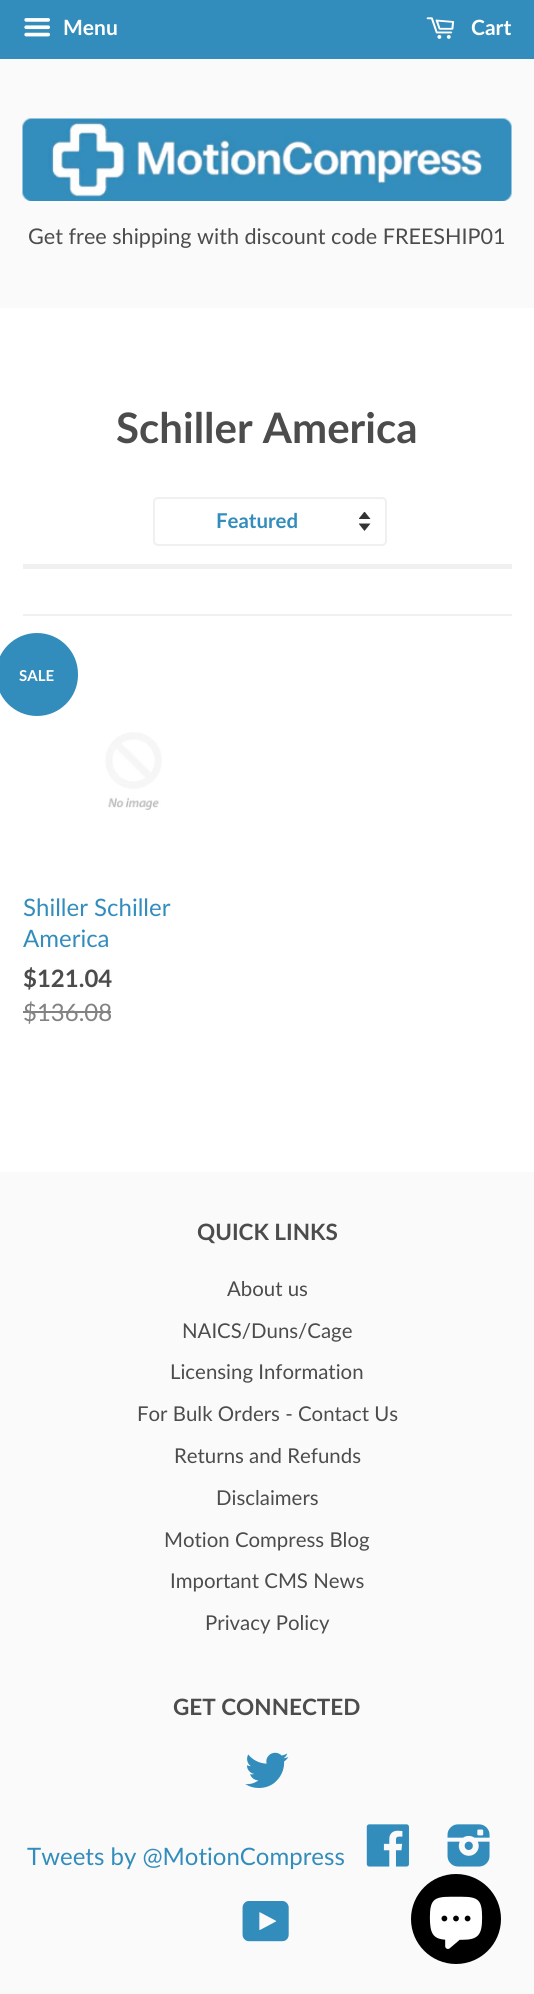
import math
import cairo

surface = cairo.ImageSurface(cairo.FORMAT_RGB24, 534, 1994)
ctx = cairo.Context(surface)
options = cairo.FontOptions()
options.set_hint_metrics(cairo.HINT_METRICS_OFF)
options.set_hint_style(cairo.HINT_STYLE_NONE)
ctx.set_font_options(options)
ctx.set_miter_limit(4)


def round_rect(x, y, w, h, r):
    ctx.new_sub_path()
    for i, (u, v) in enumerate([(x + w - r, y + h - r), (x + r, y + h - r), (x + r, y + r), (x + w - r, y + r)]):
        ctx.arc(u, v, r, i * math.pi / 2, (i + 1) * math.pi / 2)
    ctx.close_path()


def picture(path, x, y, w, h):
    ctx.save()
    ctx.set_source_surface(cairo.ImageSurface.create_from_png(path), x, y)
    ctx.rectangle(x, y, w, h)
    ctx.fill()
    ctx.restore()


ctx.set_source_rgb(1, 1, 1)
ctx.paint()
ctx.set_source_rgb(0.2, 0.553, 0.737)
ctx.rectangle(0, 0, 534, 59)
ctx.fill()
picture("img1.png", 24, 18, 26, 19)
ctx.select_font_face("Lato", cairo.FONT_SLANT_NORMAL, cairo.FONT_WEIGHT_BOLD)
ctx.set_font_size(21)
ctx.set_source_rgb(1, 1, 1)
ctx.move_to(63, 35)
ctx.show_text("Menu")
picture("img2.png", 426, 17, 29, 22)
ctx.move_to(471, 35)
ctx.show_text("Cart")
ctx.set_source_rgb(0.98, 0.98, 0.98)
ctx.rectangle(0, 59, 534, 249)
ctx.fill()
picture("img3.png", 22, 118, 490, 83)
ctx.select_font_face("Lato")
ctx.set_font_size(21.6)
ctx.set_source_rgb(0.298, 0.298, 0.298)
ctx.move_to(28, 244)
ctx.show_text("Get free shipping with discount code FREESHIP01")
ctx.set_source_rgb(0.941, 0.941, 0.941)
ctx.rectangle(23, 564, 489, 5)
ctx.fill()
ctx.select_font_face("Lato", cairo.FONT_SLANT_NORMAL, cairo.FONT_WEIGHT_BOLD)
ctx.set_font_size(42)
ctx.set_source_rgb(0.298, 0.298, 0.298)
ctx.move_to(116, 443)
ctx.show_text("Schiller America")
picture("img4.png", 359, 512, 12, 19)
round_rect(154, 498, 232, 47, 4)
ctx.set_source_rgb(0.941, 0.941, 0.941)
ctx.stroke()
ctx.set_font_size(20.4)
ctx.set_source_rgb(0.2, 0.553, 0.737)
ctx.move_to(216, 528)
ctx.show_text("Featured")
ctx.set_source_rgb(0.941, 0.941, 0.941)
ctx.rectangle(23, 614, 489, 2)
ctx.fill()
ctx.set_source_rgb(0.2, 0.553, 0.737)
round_rect(-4, 633, 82, 83, 41)
ctx.fill()
ctx.set_font_size(15)
ctx.set_source_rgb(1, 1, 1)
ctx.move_to(19, 681)
ctx.show_text("SALE")
picture("img5.png", 105, 732, 57, 78)
ctx.select_font_face("Lato")
ctx.set_font_size(24)
ctx.set_source_rgb(0.2, 0.553, 0.737)
ctx.move_to(23, 916)
ctx.show_text("Shiller Schiller")
ctx.move_to(23, 947)
ctx.show_text("America")
ctx.select_font_face("Lato", cairo.FONT_SLANT_NORMAL, cairo.FONT_WEIGHT_BOLD)
ctx.set_source_rgb(0.298, 0.298, 0.298)
ctx.move_to(23, 987)
ctx.show_text("$121.04")
ctx.select_font_face("Lato")
ctx.set_source_rgb(0.51, 0.51, 0.51)
ctx.move_to(23, 1021)
ctx.show_text("$136.08")
ctx.rectangle(23, 1011, 88, 2)
ctx.fill()
ctx.set_source_rgb(0.98, 0.98, 0.98)
ctx.rectangle(0, 1172, 534, 822)
ctx.fill()
ctx.select_font_face("Lato", cairo.FONT_SLANT_NORMAL, cairo.FONT_WEIGHT_BOLD)
ctx.set_font_size(22.5)
ctx.set_source_rgb(0.298, 0.298, 0.298)
ctx.move_to(197, 1240)
ctx.show_text("QUICK LINKS")
ctx.select_font_face("Lato")
ctx.set_font_size(20.4)
ctx.move_to(227, 1296)
ctx.show_text("About us")
ctx.move_to(182, 1338)
ctx.show_text("NAICS/Duns/Cage")
ctx.move_to(170, 1379)
ctx.show_text("Licensing Information")
ctx.move_to(137, 1421)
ctx.show_text("For Bulk Orders - Contact Us")
ctx.move_to(174, 1463)
ctx.show_text("Returns and Refunds")
ctx.move_to(216, 1505)
ctx.show_text("Disclaimers")
ctx.move_to(164, 1547)
ctx.show_text("Motion Compress Blog")
ctx.move_to(170, 1588)
ctx.show_text("Important CMS News")
ctx.move_to(205, 1630)
ctx.show_text("Privacy Policy")
ctx.select_font_face("Lato", cairo.FONT_SLANT_NORMAL, cairo.FONT_WEIGHT_BOLD)
ctx.set_font_size(22.5)
ctx.move_to(173, 1715)
ctx.show_text("GET CONNECTED")
picture("img6.png", 245, 1752, 44, 36)
ctx.select_font_face("Lato")
ctx.set_font_size(24)
ctx.set_source_rgb(0.2, 0.553, 0.737)
ctx.move_to(27, 1865)
ctx.show_text("Tweets by @MotionCompress")
picture("img7.png", 366, 1824, 43, 43)
picture("img8.png", 447, 1824, 43, 43)
picture("img9.png", 242, 1901, 47, 41)
ctx.set_source_rgb(0, 0, 0)
ctx.arc(456, 1919, 45, 0, 2 * math.pi)
ctx.fill()
picture("img10.png", 429, 1896, 54, 53)
surface.write_to_png("page.png")
